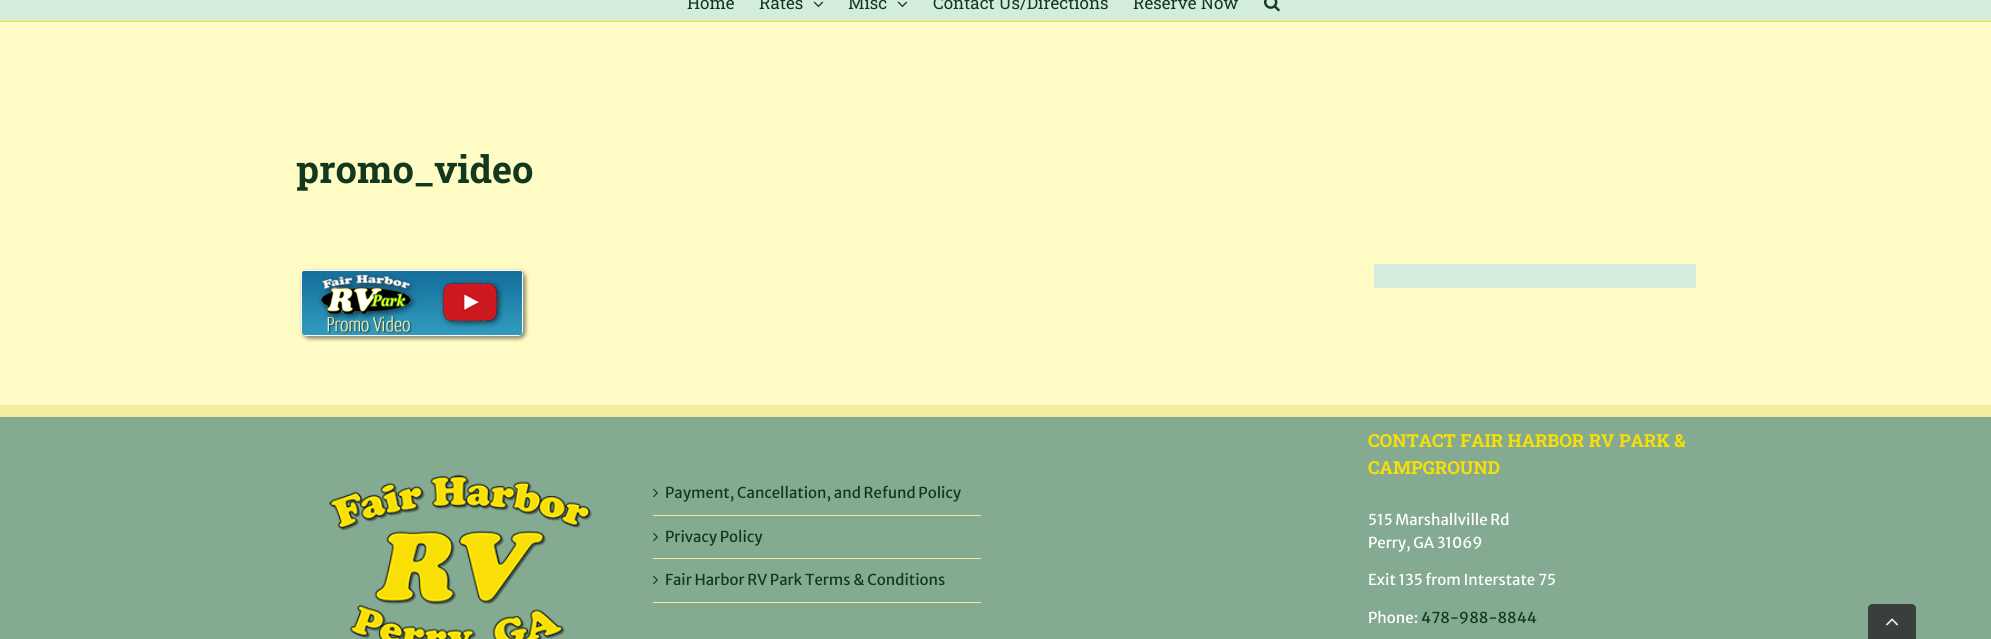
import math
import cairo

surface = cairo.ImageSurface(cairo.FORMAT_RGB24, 1991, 639)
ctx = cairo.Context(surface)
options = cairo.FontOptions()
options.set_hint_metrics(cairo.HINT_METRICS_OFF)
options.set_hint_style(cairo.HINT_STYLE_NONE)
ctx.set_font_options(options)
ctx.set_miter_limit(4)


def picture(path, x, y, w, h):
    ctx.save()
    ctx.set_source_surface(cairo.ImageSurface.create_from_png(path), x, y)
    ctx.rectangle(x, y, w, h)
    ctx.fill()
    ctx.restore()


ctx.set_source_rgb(1, 0.984, 0.769)
ctx.paint()
ctx.set_source_rgb(0.827, 0.929, 0.863)
ctx.rectangle(0, 0, 1991, 21)
ctx.fill()
ctx.set_source_rgb(0.98, 0.875, 0.024)
ctx.rectangle(0, 21, 1991, 1)
ctx.fill()
ctx.select_font_face("Roboto Slab")
ctx.set_font_size(17)
ctx.set_source_rgb(0.078, 0.22, 0.125)
ctx.move_to(687, 9)
ctx.show_text("Home")
ctx.move_to(759, 9)
ctx.show_text("Rates")
picture("img1.png", 813, 1, 11, 7)
ctx.move_to(848, 9)
ctx.show_text("Misc")
picture("img1.png", 897, 1, 11, 7)
ctx.move_to(933, 9)
ctx.show_text("Contact Us/Directions")
ctx.move_to(1133, 9)
ctx.show_text("Reserve Now")
picture("img2.png", 1264, 0, 16, 12)
ctx.select_font_face("Roboto Slab", cairo.FONT_SLANT_NORMAL, cairo.FONT_WEIGHT_BOLD)
ctx.set_font_size(38)
ctx.move_to(296, 183)
ctx.show_text("promo_video")
picture("img3.png", 299, 268, 230, 74)
ctx.set_source_rgb(0.827, 0.929, 0.863)
ctx.rectangle(1374, 264, 322, 24)
ctx.fill()
ctx.set_source_rgb(0.518, 0.671, 0.569)
ctx.rectangle(0, 417, 1991, 222)
ctx.fill()
ctx.set_source_rgb(0.949, 0.922, 0.631)
ctx.rectangle(0, 405, 1991, 12)
ctx.fill()
picture("img4.png", 328, 474, 264, 165)
ctx.rectangle(653, 515, 328, 1)
ctx.fill()
picture("img5.png", 653, 488, 5, 10)
ctx.select_font_face("Merriweather Sans")
ctx.set_font_size(15)
ctx.set_source_rgb(0.078, 0.22, 0.125)
ctx.move_to(665, 498)
ctx.show_text("Payment, Cancellation, and Refund Policy")
ctx.set_source_rgb(0.949, 0.922, 0.631)
ctx.rectangle(653, 558, 328, 1)
ctx.fill()
picture("img5.png", 653, 532, 5, 10)
ctx.set_source_rgb(0.078, 0.22, 0.125)
ctx.move_to(665, 542)
ctx.show_text("Privacy Policy")
ctx.set_source_rgb(0.949, 0.922, 0.631)
ctx.rectangle(653, 602, 328, 1)
ctx.fill()
picture("img5.png", 653, 575, 5, 10)
ctx.set_source_rgb(0.078, 0.22, 0.125)
ctx.move_to(665, 585)
ctx.show_text("Fair Harbor RV Park Terms & Conditions")
ctx.select_font_face("Roboto Slab", cairo.FONT_SLANT_NORMAL, cairo.FONT_WEIGHT_BOLD)
ctx.set_font_size(18)
ctx.set_source_rgb(0.98, 0.875, 0.024)
ctx.move_to(1368, 447)
ctx.show_text("CONTACT FAIR HARBOR RV PARK &")
ctx.move_to(1368, 474)
ctx.show_text("CAMPGROUND")
ctx.select_font_face("Merriweather Sans")
ctx.set_font_size(15)
ctx.set_source_rgb(1, 1, 1)
ctx.move_to(1368, 525)
ctx.show_text("515 Marshallville Rd")
ctx.move_to(1368, 548)
ctx.show_text("Perry, GA 31069")
ctx.move_to(1368, 585)
ctx.show_text("Exit 135 from Interstate 75")
ctx.move_to(1368, 623)
ctx.show_text("Phone:")
ctx.set_source_rgb(0.078, 0.22, 0.125)
ctx.move_to(1421, 623)
ctx.show_text("478-988-8844")
ctx.set_source_rgb(0.231, 0.247, 0.235)
ctx.new_path()
ctx.move_to(1872, 604)
ctx.line_to(1912, 604)
ctx.curve_to(1914, 604, 1916, 606, 1916, 608)
ctx.line_to(1916, 639)
ctx.line_to(1868, 639)
ctx.line_to(1868, 608)
ctx.curve_to(1868, 606, 1870, 604, 1872, 604)
ctx.close_path()
ctx.fill()
picture("img6.png", 1886, 618, 13, 8)
surface.write_to_png("page.png")
